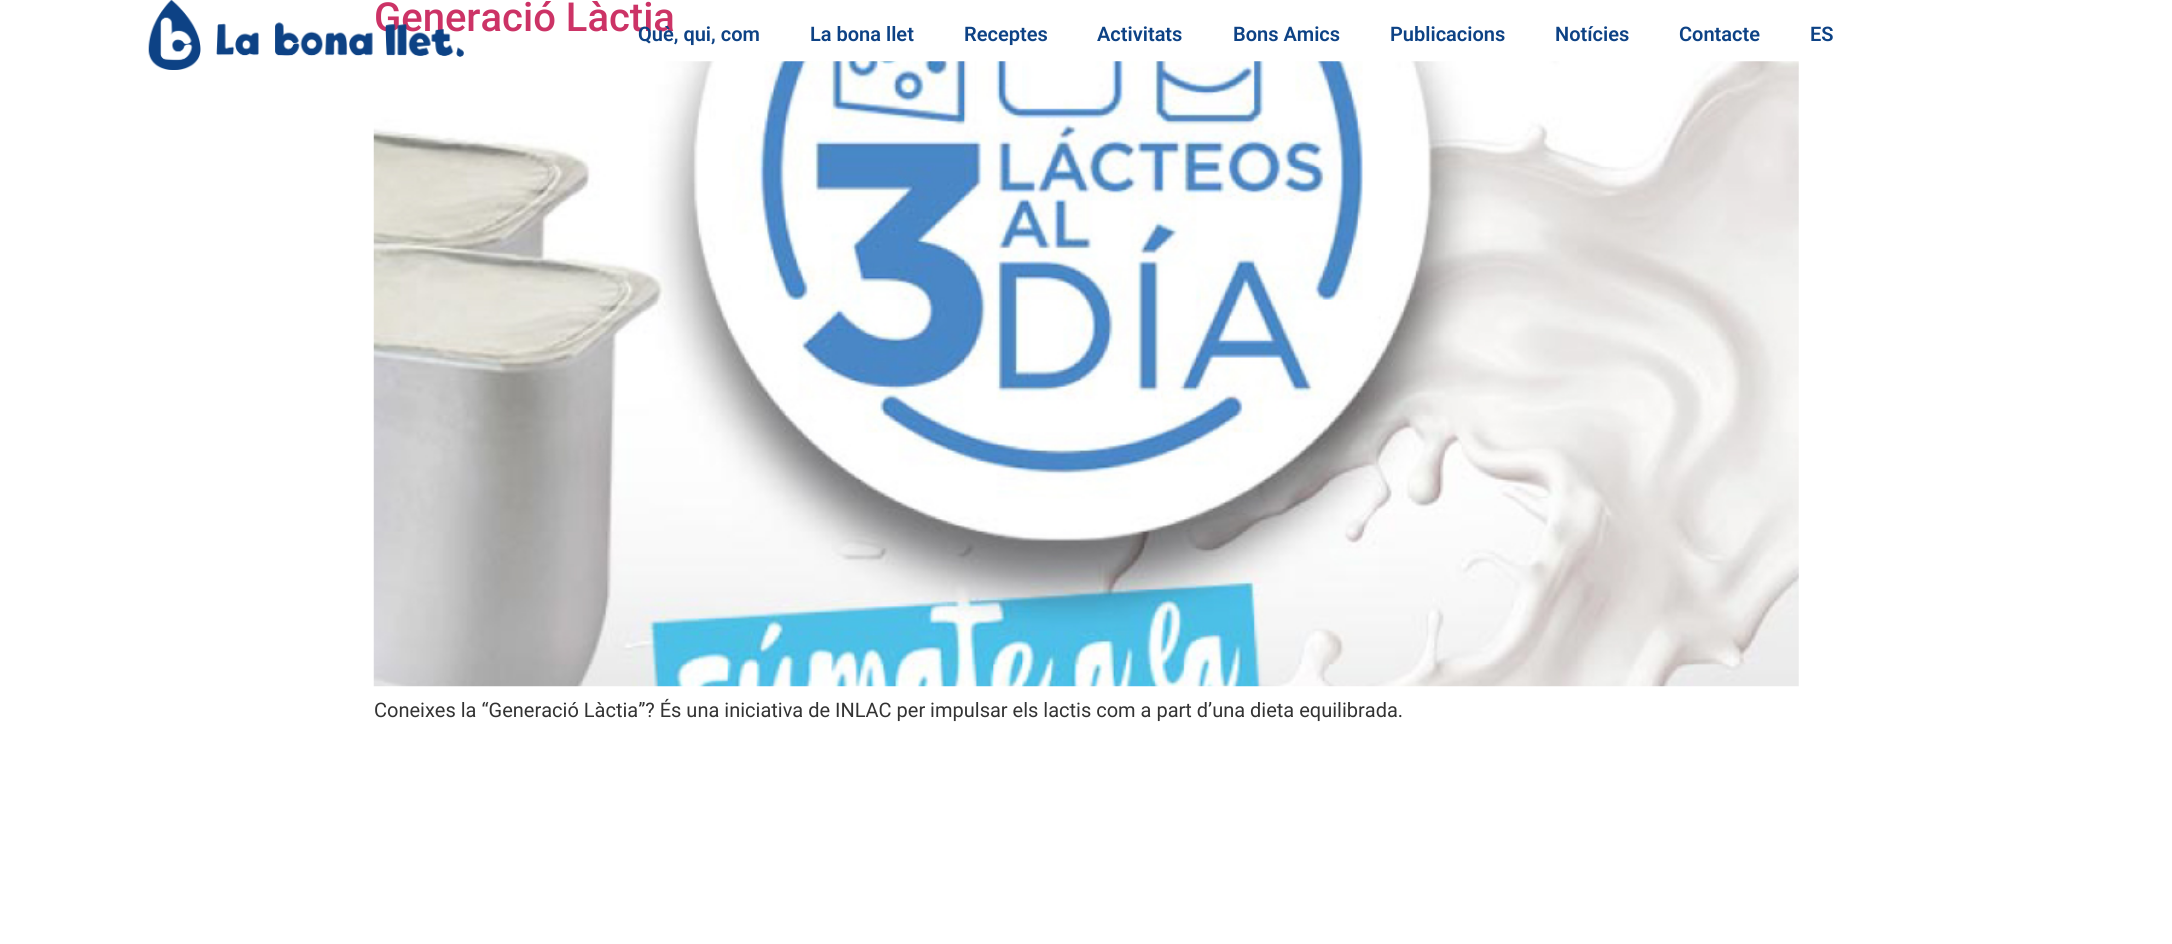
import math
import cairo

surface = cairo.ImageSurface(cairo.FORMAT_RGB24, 2172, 944)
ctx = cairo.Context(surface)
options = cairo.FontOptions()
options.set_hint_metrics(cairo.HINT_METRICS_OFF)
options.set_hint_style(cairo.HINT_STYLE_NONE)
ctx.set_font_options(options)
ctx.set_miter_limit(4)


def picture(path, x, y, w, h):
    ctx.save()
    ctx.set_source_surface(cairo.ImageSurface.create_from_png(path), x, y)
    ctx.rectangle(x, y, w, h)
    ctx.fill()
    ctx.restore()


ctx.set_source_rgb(1, 1, 1)
ctx.paint()
ctx.select_font_face("Roboto Medium")
ctx.set_font_size(40)
ctx.set_source_rgb(0.8, 0.2, 0.4)
ctx.move_to(374, 31)
ctx.show_text("Generació Làctia")
picture("img1.png", 373, 61, 1426, 626)
ctx.select_font_face("Roboto")
ctx.set_font_size(20)
ctx.set_source_rgb(0.2, 0.2, 0.2)
ctx.move_to(374, 717)
ctx.show_text("Coneixes la “Generació Làctia”? És una iniciativa de INLAC per impulsar els lactis com a part d’una dieta equilibrada.")
picture("img2.png", 148, 0, 316, 70)
ctx.select_font_face("Roboto SemiBold")
ctx.set_source_rgb(0.051, 0.259, 0.522)
ctx.move_to(638, 41)
ctx.show_text("Què, qui, com")
ctx.move_to(810, 41)
ctx.show_text("La bona llet")
ctx.move_to(964, 41)
ctx.show_text("Receptes")
ctx.move_to(1097, 41)
ctx.show_text("Activitats")
ctx.move_to(1233, 41)
ctx.show_text("Bons Amics")
ctx.move_to(1390, 41)
ctx.show_text("Publicacions")
ctx.move_to(1555, 41)
ctx.show_text("Notícies")
ctx.move_to(1679, 41)
ctx.show_text("Contacte")
ctx.move_to(1810, 41)
ctx.show_text("ES")
surface.write_to_png("page.png")
